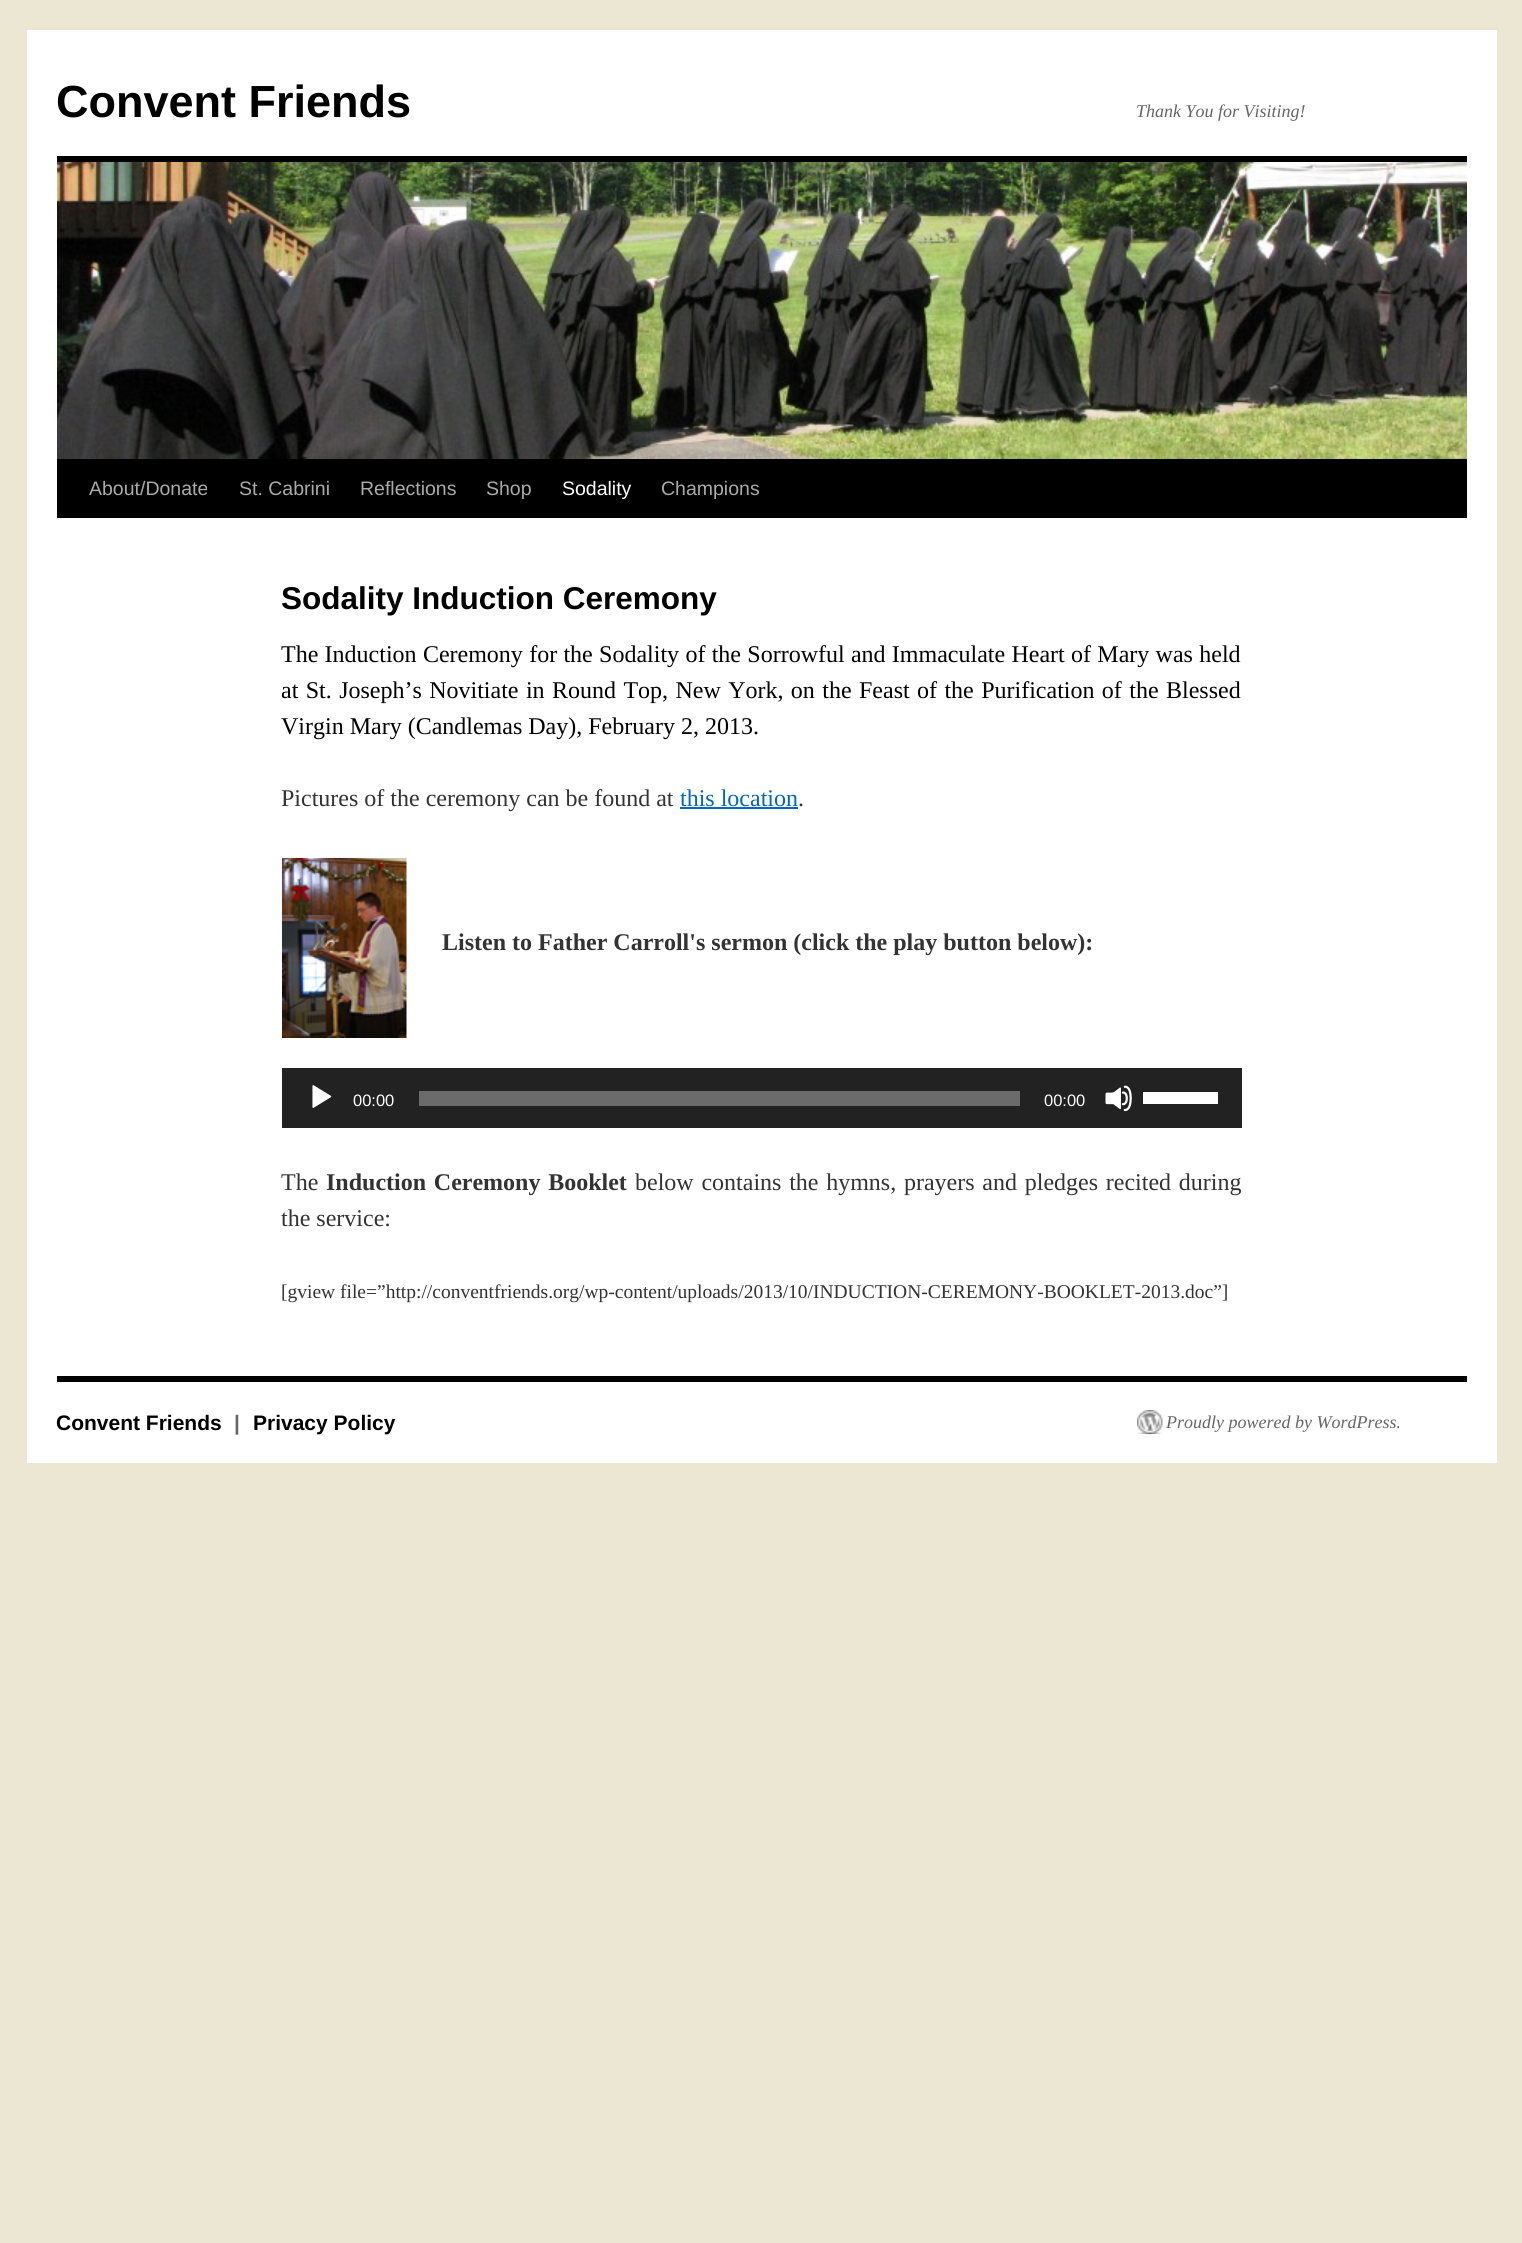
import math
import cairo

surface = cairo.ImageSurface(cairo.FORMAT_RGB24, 1522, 2243)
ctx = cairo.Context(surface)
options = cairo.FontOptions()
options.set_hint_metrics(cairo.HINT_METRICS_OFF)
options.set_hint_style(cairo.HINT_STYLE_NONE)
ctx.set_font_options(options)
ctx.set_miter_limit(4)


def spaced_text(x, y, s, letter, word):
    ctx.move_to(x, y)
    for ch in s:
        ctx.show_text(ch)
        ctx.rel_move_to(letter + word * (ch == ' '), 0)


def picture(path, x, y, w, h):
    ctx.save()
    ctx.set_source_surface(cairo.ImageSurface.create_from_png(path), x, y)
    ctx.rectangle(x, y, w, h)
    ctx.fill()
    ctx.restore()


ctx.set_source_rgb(0.918, 0.906, 0.827)
ctx.paint()
ctx.set_source_rgb(1, 1, 1)
ctx.rectangle(27, 30, 1470, 1433)
ctx.fill()
ctx.select_font_face("Liberation Sans", cairo.FONT_SLANT_NORMAL, cairo.FONT_WEIGHT_BOLD)
ctx.set_font_size(45)
ctx.set_source_rgb(0, 0, 0)
ctx.move_to(56, 117)
ctx.show_text("Convent Friends")
ctx.select_font_face("Liberation Serif", cairo.FONT_SLANT_ITALIC)
ctx.set_font_size(18)
ctx.set_source_rgb(0.4, 0.4, 0.4)
ctx.move_to(1136, 117)
ctx.show_text("Thank You for Visiting!")
ctx.set_source_rgb(0, 0, 0)
ctx.rectangle(57, 156, 1410, 6)
ctx.fill()
ctx.rectangle(57, 459, 1410, 59)
ctx.fill()
picture("img1.png", 57, 162, 1410, 297)
ctx.select_font_face("Liberation Sans")
ctx.set_font_size(19.5)
ctx.set_source_rgb(0.667, 0.667, 0.667)
ctx.move_to(89, 495)
ctx.show_text("About/Donate")
ctx.move_to(239, 495)
ctx.show_text("St. Cabrini")
ctx.move_to(360, 495)
ctx.show_text("Reflections")
ctx.move_to(486, 495)
ctx.show_text("Shop")
ctx.set_source_rgb(1, 1, 1)
ctx.move_to(562, 495)
ctx.show_text("Sodality")
ctx.set_source_rgb(0.667, 0.667, 0.667)
ctx.move_to(661, 495)
ctx.show_text("Champions")
ctx.select_font_face("Liberation Sans", cairo.FONT_SLANT_NORMAL, cairo.FONT_WEIGHT_BOLD)
ctx.set_font_size(31.5)
ctx.set_source_rgb(0, 0, 0)
ctx.move_to(281, 609)
ctx.show_text("Sodality Induction Ceremony")
ctx.select_font_face("Liberation Serif")
ctx.set_font_size(24)
spaced_text(281, 662, "The Induction Ceremony for the Sodality of the Sorrowful and Immaculate Heart of Mary was held", 0, 0.3)
spaced_text(281, 698, "at St. Joseph’s Novitiate in Round Top, New York, on the Feast of the Purification of the Blessed", 0, 1.4)
ctx.move_to(281, 734)
ctx.show_text("Virgin Mary (Candlemas Day), February 2, 2013.")
ctx.set_source_rgb(0.2, 0.2, 0.2)
ctx.move_to(281, 806)
ctx.show_text("Pictures of the ceremony can be found at")
ctx.set_source_rgb(0, 0.4, 0.8)
ctx.move_to(680, 806)
ctx.show_text("this location")
ctx.set_source_rgb(0.2, 0.2, 0.2)
ctx.move_to(798, 806)
ctx.show_text(".")
ctx.set_source_rgb(0, 0.4, 0.8)
ctx.rectangle(680, 807, 118, 2)
ctx.fill()
picture("img2.png", 282, 858, 125, 180)
ctx.select_font_face("Liberation Serif", cairo.FONT_SLANT_NORMAL, cairo.FONT_WEIGHT_BOLD)
ctx.set_source_rgb(0.2, 0.2, 0.2)
ctx.move_to(442, 950)
ctx.show_text("Listen to Father Carroll's sermon (click the play button below):")
ctx.set_source_rgb(0.133, 0.133, 0.133)
ctx.rectangle(282, 1068, 960, 60)
ctx.fill()
picture("img3.png", 312, 1085, 20, 23)
ctx.select_font_face("Liberation Sans")
ctx.set_font_size(16.5)
ctx.set_source_rgb(1, 1, 1)
ctx.move_to(353, 1106)
ctx.show_text("00:00")
ctx.set_source_rgb(0.42, 0.42, 0.42)
ctx.rectangle(419, 1091, 601, 15)
ctx.fill()
ctx.set_source_rgb(1, 1, 1)
ctx.move_to(1044, 1106)
ctx.show_text("00:00")
picture("img4.png", 1105, 1085, 27, 27)
ctx.rectangle(1143, 1092, 75, 12)
ctx.fill()
ctx.select_font_face("Liberation Serif")
ctx.set_font_size(24)
ctx.set_source_rgb(0.2, 0.2, 0.2)
ctx.move_to(281, 1190)
ctx.show_text("The")
ctx.select_font_face("Liberation Serif", cairo.FONT_SLANT_NORMAL, cairo.FONT_WEIGHT_BOLD)
spaced_text(326, 1190, "Induction Ceremony Booklet", 0, 1.75)
ctx.select_font_face("Liberation Serif")
spaced_text(635, 1190, "below contains the hymns, prayers and pledges recited during", 0, 1.75)
ctx.move_to(281, 1226)
ctx.show_text("the service:")
ctx.set_font_size(19.5)
ctx.move_to(281, 1298)
ctx.show_text("[gview file=”http://conventfriends.org/wp-content/uploads/2013/10/INDUCTION-CEREMONY-BOOKLET-2013.doc”]")
ctx.set_source_rgb(0, 0, 0)
ctx.rectangle(57, 1376, 1410, 6)
ctx.fill()
ctx.select_font_face("Liberation Sans", cairo.FONT_SLANT_NORMAL, cairo.FONT_WEIGHT_BOLD)
ctx.set_font_size(21)
ctx.move_to(56, 1430)
ctx.show_text("Convent Friends")
ctx.set_source_rgb(0.4, 0.4, 0.4)
ctx.move_to(234, 1430)
ctx.show_text("|")
ctx.set_source_rgb(0, 0, 0)
ctx.move_to(253, 1430)
ctx.show_text("Privacy Policy")
picture("img5.png", 1137, 1410, 26, 24)
ctx.select_font_face("Liberation Serif", cairo.FONT_SLANT_ITALIC)
ctx.set_font_size(18)
ctx.set_source_rgb(0.4, 0.4, 0.4)
ctx.move_to(1166, 1428)
ctx.show_text("Proudly powered by WordPress.")
surface.write_to_png("page.png")
